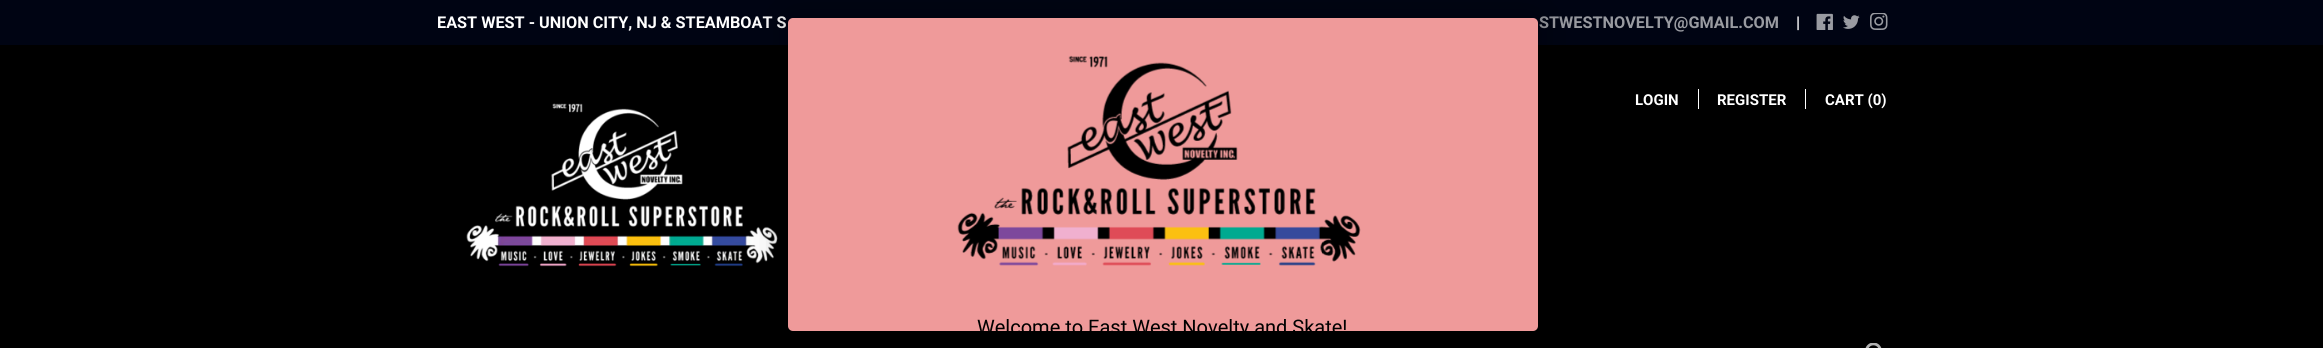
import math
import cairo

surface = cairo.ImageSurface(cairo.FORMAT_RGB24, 2323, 348)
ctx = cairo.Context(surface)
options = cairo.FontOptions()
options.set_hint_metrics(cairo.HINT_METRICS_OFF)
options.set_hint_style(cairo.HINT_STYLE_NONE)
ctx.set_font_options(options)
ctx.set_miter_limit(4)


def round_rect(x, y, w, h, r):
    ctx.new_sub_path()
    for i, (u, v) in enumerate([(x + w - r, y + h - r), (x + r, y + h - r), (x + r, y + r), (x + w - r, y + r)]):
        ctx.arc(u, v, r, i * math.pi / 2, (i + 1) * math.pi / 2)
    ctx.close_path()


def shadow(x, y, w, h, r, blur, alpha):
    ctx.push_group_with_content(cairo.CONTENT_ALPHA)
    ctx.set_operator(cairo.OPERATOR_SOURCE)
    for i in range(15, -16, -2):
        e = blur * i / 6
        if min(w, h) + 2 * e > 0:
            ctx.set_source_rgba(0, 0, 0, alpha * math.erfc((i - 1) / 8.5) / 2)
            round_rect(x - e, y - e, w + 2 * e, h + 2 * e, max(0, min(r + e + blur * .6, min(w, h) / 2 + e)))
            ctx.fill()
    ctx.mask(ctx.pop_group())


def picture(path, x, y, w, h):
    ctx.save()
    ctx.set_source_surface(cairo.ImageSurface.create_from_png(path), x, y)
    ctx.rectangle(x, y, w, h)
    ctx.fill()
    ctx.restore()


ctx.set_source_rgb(0, 0.016, 0.078)
ctx.paint()
ctx.select_font_face("Roboto", cairo.FONT_SLANT_NORMAL, cairo.FONT_WEIGHT_BOLD)
ctx.set_font_size(16.25)
ctx.set_source_rgb(1, 1, 1)
ctx.move_to(437, 28)
ctx.show_text("EAST WEST - UNION CITY, NJ & STEAMBOAT S")
ctx.set_source_rgb(0.6, 0.608, 0.631)
ctx.move_to(1539, 28)
ctx.show_text("STWESTNOVELTY@GMAIL.COM")
ctx.set_source_rgb(1, 1, 1)
ctx.move_to(1796, 28)
ctx.show_text("|")
picture("img1.png", 1816, 13, 17, 17)
picture("img2.png", 1843, 15, 17, 14)
picture("img3.png", 1870, 13, 18, 17)
ctx.set_source_rgb(0, 0, 0)
ctx.rectangle(0, 45, 2323, 303)
ctx.fill()
ctx.set_font_size(15)
ctx.set_source_rgb(1, 1, 1)
ctx.move_to(1635, 105)
ctx.show_text("LOGIN")
ctx.rectangle(1698, 89, 1, 20)
ctx.fill()
ctx.move_to(1717, 105)
ctx.show_text("REGISTER")
ctx.rectangle(1805, 89, 1, 20)
ctx.fill()
ctx.move_to(1825, 105)
ctx.show_text("CART (0)")
picture("img4.png", 466, 103, 312, 164)
picture("img5.png", 1865, 343, 17, 5)
ctx.set_source_rgb(0, 0, 0)
shadow(788, 18, 750, 313, 5, 19, 0.35)
ctx.set_source_rgb(0.937, 0.604, 0.604)
round_rect(788, 18, 750, 313, 5)
ctx.fill()
picture("img6.png", 957, 55, 404, 211)
ctx.save()
round_rect(788, 18, 750, 313, 5)
ctx.clip()
ctx.select_font_face("Roboto")
ctx.set_font_size(20)
ctx.set_source_rgb(0, 0, 0)
ctx.move_to(977, 334)
ctx.show_text("Welcome to East West Novelty and Skate!")
ctx.restore()
surface.write_to_png("page.png")
